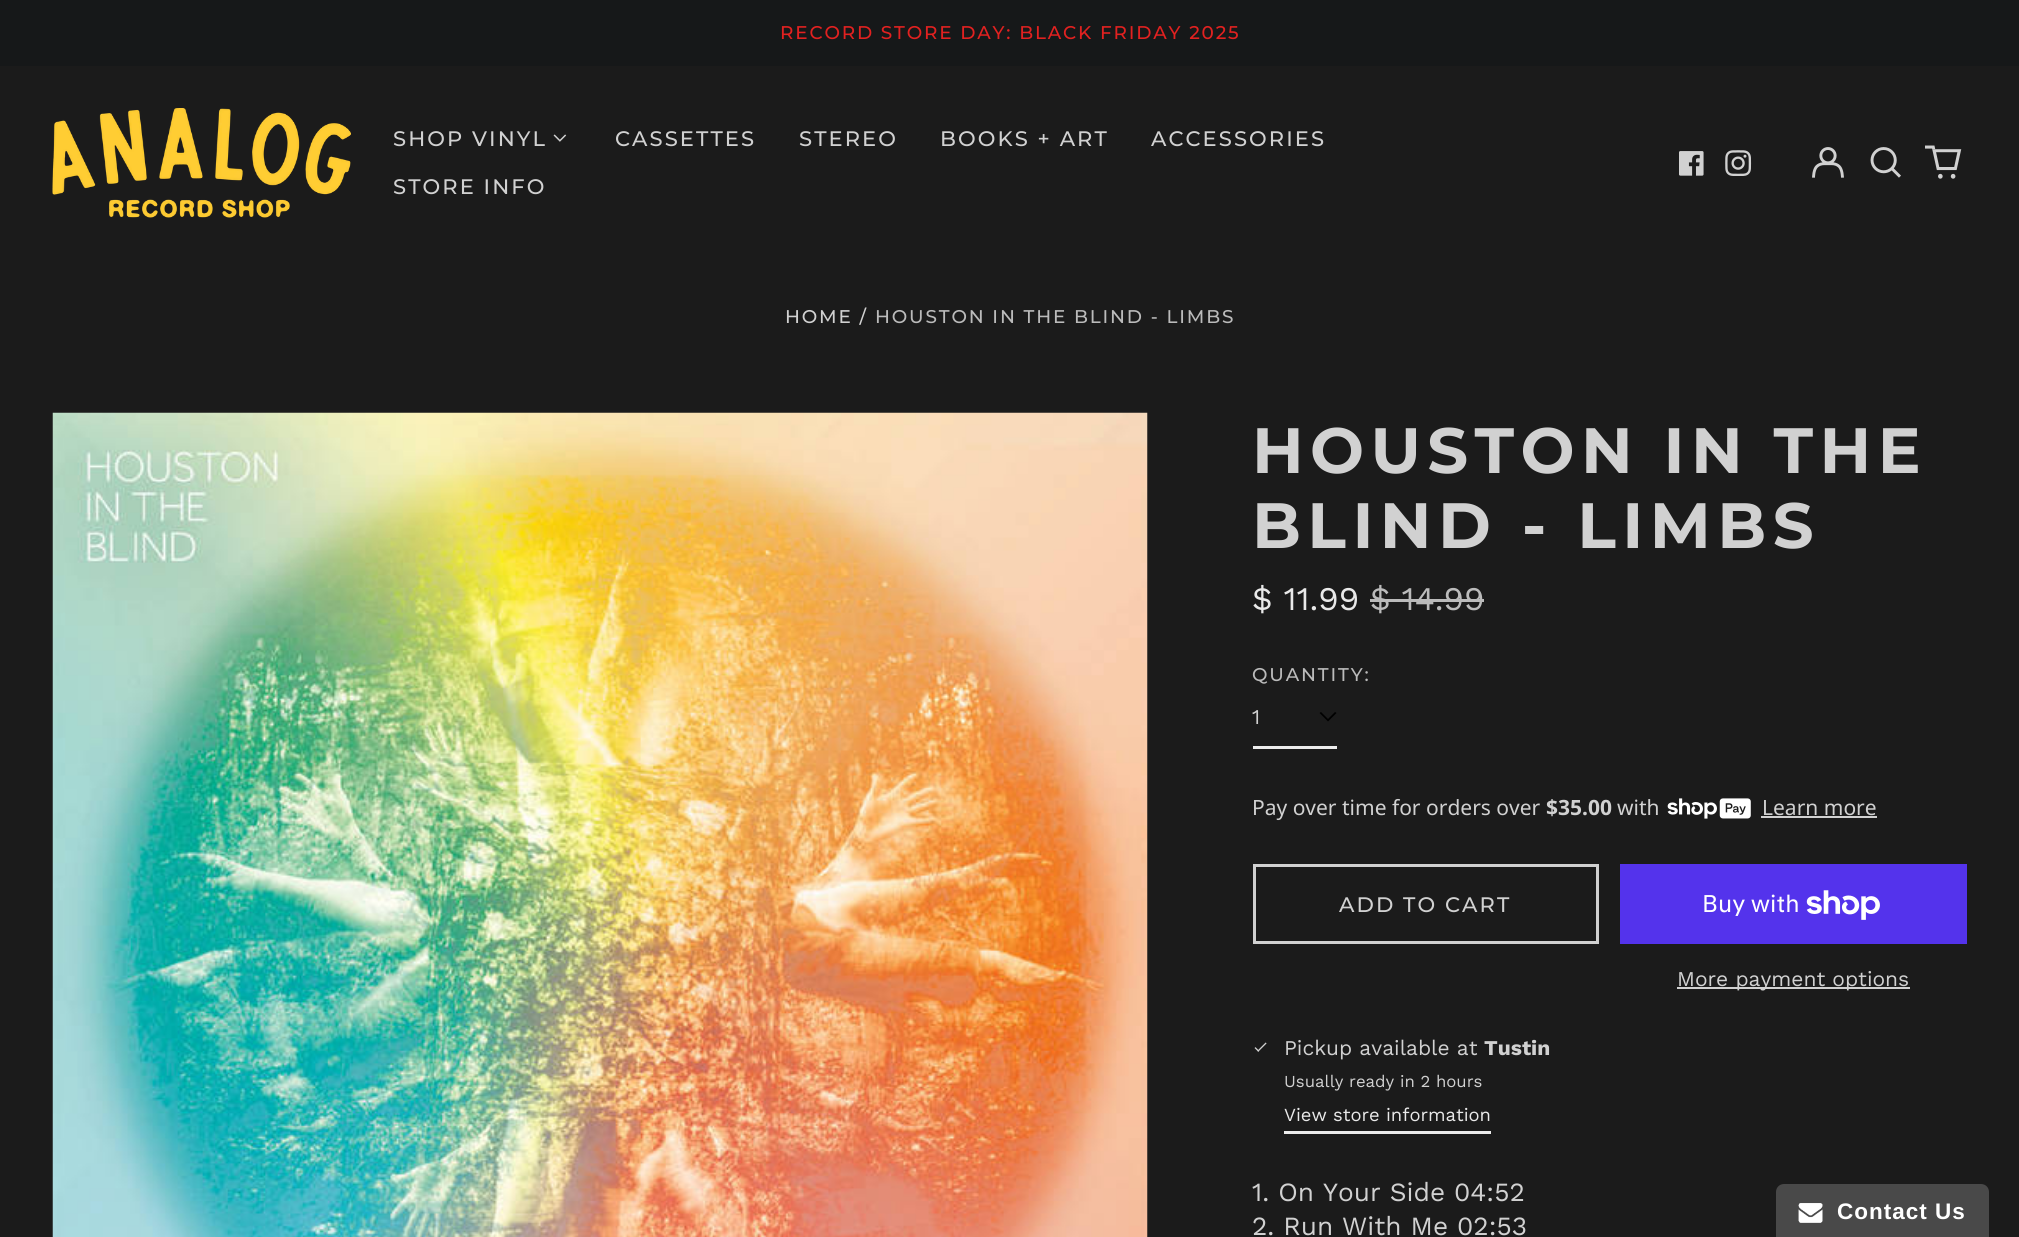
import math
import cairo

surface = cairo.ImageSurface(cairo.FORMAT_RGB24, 2019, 1237)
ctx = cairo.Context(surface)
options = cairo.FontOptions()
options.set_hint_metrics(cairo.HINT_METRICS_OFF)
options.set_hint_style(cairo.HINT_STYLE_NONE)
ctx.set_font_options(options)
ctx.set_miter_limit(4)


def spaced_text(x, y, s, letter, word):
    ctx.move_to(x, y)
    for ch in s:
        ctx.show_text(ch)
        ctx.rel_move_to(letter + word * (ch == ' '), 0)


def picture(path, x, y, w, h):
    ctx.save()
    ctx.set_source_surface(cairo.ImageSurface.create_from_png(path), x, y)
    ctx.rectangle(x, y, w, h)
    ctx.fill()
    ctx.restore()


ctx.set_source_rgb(0.106, 0.106, 0.106)
ctx.paint()
ctx.set_source_rgb(0.086, 0.094, 0.098)
ctx.rectangle(0, 0, 2019, 66)
ctx.fill()
ctx.select_font_face("Montserrat Medium")
ctx.set_font_size(18.4)
ctx.set_source_rgb(0.886, 0.129, 0.125)
spaced_text(780, 39, "RECORD STORE DAY: BLACK FRIDAY 2025", 1.85, 0)
picture("img1.png", 52, 108, 299, 110)
ctx.set_font_size(21)
ctx.set_source_rgb(0.82, 0.82, 0.82)
spaced_text(393, 146, "SHOP VINYL", 2.1, 0)
picture("img2.png", 553, 134, 14, 8)
spaced_text(615, 146, "CASSETTES", 2.1, 0)
spaced_text(799, 146, "STEREO", 2.1, 0)
spaced_text(940, 146, "BOOKS + ART", 2.1, 0)
spaced_text(1151, 146, "ACCESSORIES", 2.1, 0)
spaced_text(393, 194, "STORE INFO", 2.1, 0)
picture("img3.png", 1679, 151, 25, 25)
picture("img4.png", 1725, 150, 27, 26)
picture("img5.png", 1812, 147, 32, 31)
picture("img6.png", 1870, 147, 31, 31)
picture("img7.png", 1925, 145, 37, 34)
ctx.set_font_size(18.4)
spaced_text(785, 323, "HOME /", 1.85, 0)
ctx.set_source_rgb(0.733, 0.733, 0.733)
spaced_text(875, 323, "HOUSTON IN THE BLIND - LIMBS", 1.85, 0)
picture("img8.png", 52, 412, 1096, 825)
ctx.select_font_face("Montserrat", cairo.FONT_SLANT_NORMAL, cairo.FONT_WEIGHT_BOLD)
ctx.set_font_size(64)
ctx.set_source_rgb(0.82, 0.82, 0.82)
spaced_text(1252, 473, "HOUSTON IN THE", 6.4, 0)
spaced_text(1252, 548, "BLIND - LIMBS", 6.4, 0)
ctx.select_font_face("Work Sans")
ctx.set_font_size(33)
ctx.set_source_rgb(0.914, 0.914, 0.914)
ctx.move_to(1252, 610)
ctx.show_text("$ 11.99")
ctx.set_source_rgb(0.733, 0.733, 0.733)
ctx.move_to(1370, 610)
ctx.show_text("$ 14.99")
ctx.rectangle(1370, 599, 114, 3)
ctx.fill()
ctx.select_font_face("Montserrat Medium")
ctx.set_font_size(18.4)
spaced_text(1252, 681, "QUANTITY:", 1.85, 0)
ctx.set_source_rgb(0, 0, 0)
ctx.set_fill_rule(cairo.FILL_RULE_EVEN_ODD)
ctx.new_path()
ctx.move_to(1335, 712)
ctx.line_to(1336.5, 713)
ctx.line_to(1328, 721.5)
ctx.line_to(1319.5, 713)
ctx.line_to(1321, 712)
ctx.line_to(1328, 719)
ctx.close_path()
ctx.fill()
ctx.set_source_rgb(0.922, 0.922, 0.922)
ctx.rectangle(1253, 746, 84, 3)
ctx.fill()
ctx.select_font_face("Work Sans")
ctx.set_font_size(21)
ctx.set_source_rgb(0.82, 0.82, 0.82)
ctx.move_to(1252, 724)
ctx.show_text("1")
ctx.select_font_face("Noto Sans")
ctx.move_to(1252, 815)
ctx.show_text("Pay over time for orders over")
ctx.select_font_face("Noto Sans", cairo.FONT_SLANT_NORMAL, cairo.FONT_WEIGHT_BOLD)
ctx.move_to(1546, 815)
ctx.show_text("$35.00")
ctx.select_font_face("Noto Sans")
ctx.move_to(1617, 815)
ctx.show_text("with")
picture("img9.png", 1667, 798, 84, 21)
ctx.move_to(1762, 815)
ctx.show_text("Learn more")
ctx.rectangle(1761, 816, 116, 2)
ctx.fill()
ctx.rectangle(1254.5, 865.5, 343, 77)
ctx.set_line_width(3)
ctx.stroke()
ctx.select_font_face("Montserrat Medium")
spaced_text(1339, 912, "ADD TO CART", 2.1, 0)
ctx.set_source_rgb(0.329, 0.2, 0.922)
ctx.rectangle(1620, 864, 347, 80)
ctx.fill()
ctx.select_font_face("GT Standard")
ctx.set_font_size(24)
ctx.set_source_rgb(1, 1, 1)
ctx.move_to(1702, 912)
ctx.show_text("Buy with")
picture("img10.png", 1806, 890, 74, 30)
ctx.set_source_rgb(0.82, 0.82, 0.82)
ctx.rectangle(1677, 987, 233, 2)
ctx.fill()
ctx.select_font_face("Work Sans")
ctx.set_font_size(21)
ctx.move_to(1677, 986)
ctx.show_text("More payment options")
picture("img11.png", 1254, 1042, 13, 10)
ctx.move_to(1284, 1055)
ctx.show_text("Pickup available at")
ctx.select_font_face("Work Sans", cairo.FONT_SLANT_NORMAL, cairo.FONT_WEIGHT_BOLD)
ctx.move_to(1484, 1055)
ctx.show_text("Tustin")
ctx.select_font_face("Work Sans")
ctx.set_font_size(16.75)
ctx.move_to(1284, 1087)
ctx.show_text("Usually ready in 2 hours")
ctx.set_source_rgb(0.922, 0.922, 0.922)
ctx.rectangle(1284, 1131, 207, 3)
ctx.fill()
ctx.set_font_size(18.4)
ctx.set_source_rgb(0.914, 0.914, 0.914)
ctx.move_to(1284, 1121)
ctx.show_text("View store information")
ctx.set_font_size(26.25)
ctx.set_source_rgb(0.82, 0.82, 0.82)
ctx.move_to(1252, 1201)
ctx.show_text("1. On Your Side 04:52")
ctx.move_to(1252, 1235)
ctx.show_text("2. Run With Me 02:53")
ctx.set_source_rgb(0.286, 0.286, 0.286)
ctx.new_path()
ctx.move_to(1784, 1184)
ctx.line_to(1981, 1184)
ctx.curve_to(1985.5, 1184, 1989, 1187.5, 1989, 1192)
ctx.line_to(1989, 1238)
ctx.line_to(1776, 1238)
ctx.line_to(1776, 1192)
ctx.curve_to(1776, 1187.5, 1779.5, 1184, 1784, 1184)
ctx.close_path()
ctx.fill()
picture("img12.png", 1798, 1203, 25, 20)
ctx.select_font_face("Liberation Sans", cairo.FONT_SLANT_NORMAL, cairo.FONT_WEIGHT_BOLD)
ctx.set_font_size(22.5)
ctx.set_source_rgb(1, 1, 1)
spaced_text(1837, 1219, "Contact Us", 1, 0)
surface.write_to_png("page.png")
